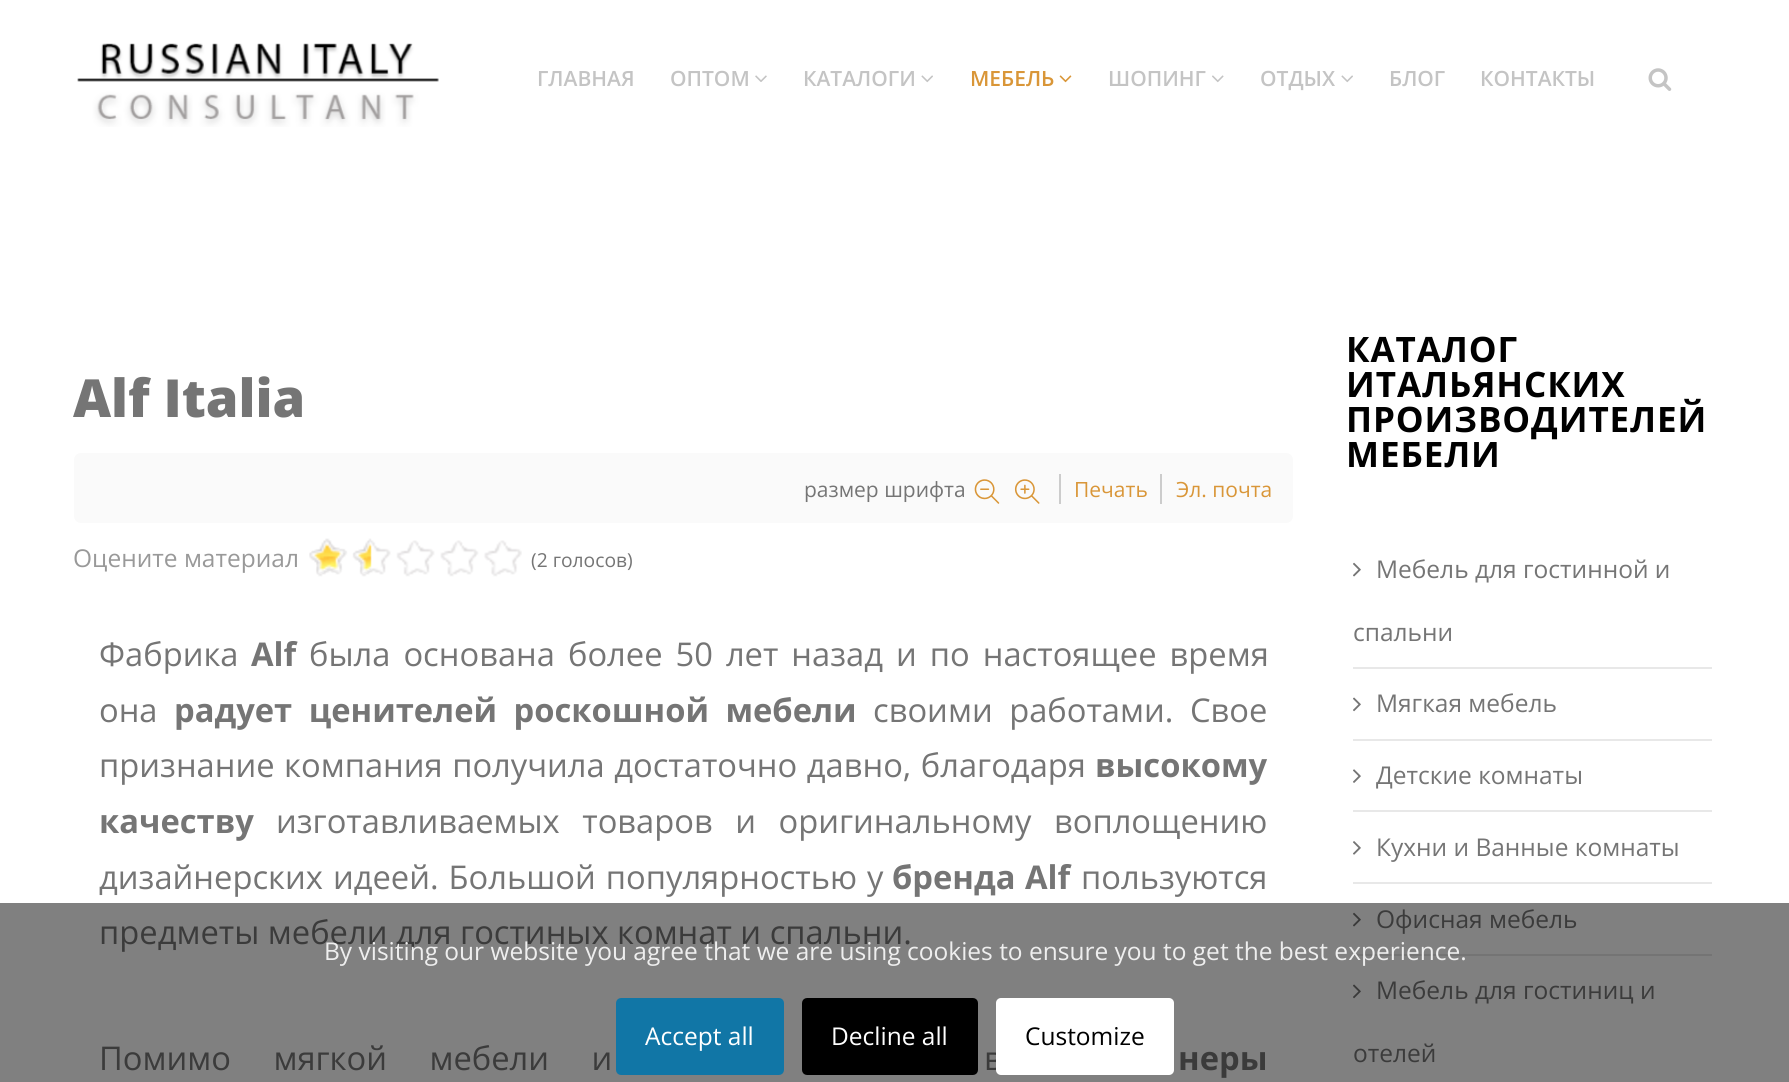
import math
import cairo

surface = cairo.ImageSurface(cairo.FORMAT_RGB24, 1789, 1082)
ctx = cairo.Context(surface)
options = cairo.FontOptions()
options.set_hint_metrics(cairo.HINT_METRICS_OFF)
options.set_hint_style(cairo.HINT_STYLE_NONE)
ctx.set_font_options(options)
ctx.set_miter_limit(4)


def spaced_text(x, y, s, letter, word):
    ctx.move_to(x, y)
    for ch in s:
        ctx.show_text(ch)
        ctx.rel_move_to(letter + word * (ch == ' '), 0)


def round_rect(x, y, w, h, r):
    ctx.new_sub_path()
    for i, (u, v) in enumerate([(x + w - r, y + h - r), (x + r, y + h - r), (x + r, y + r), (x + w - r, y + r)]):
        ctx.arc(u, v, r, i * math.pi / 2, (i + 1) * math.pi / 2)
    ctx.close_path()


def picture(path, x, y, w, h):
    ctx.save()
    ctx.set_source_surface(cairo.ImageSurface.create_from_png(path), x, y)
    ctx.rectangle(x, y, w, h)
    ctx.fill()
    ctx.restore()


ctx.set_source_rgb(1, 1, 1)
ctx.paint()
ctx.set_source_rgb(0.502, 0.502, 0.502)
ctx.rectangle(0, 903, 1789, 179)
ctx.fill()
picture("img1.png", 77, 43, 362, 84)
ctx.select_font_face("Open Sans SemiBold")
ctx.set_font_size(21)
ctx.set_source_rgb(0.769, 0.769, 0.769)
ctx.move_to(537, 86)
ctx.show_text("ГЛАВНАЯ")
ctx.move_to(670, 86)
ctx.show_text("ОПТОМ")
picture("img2.png", 755, 75, 12, 7)
ctx.move_to(803, 86)
ctx.show_text("КАТАЛОГИ")
picture("img3.png", 921, 75, 12, 8)
ctx.set_source_rgb(0.851, 0.588, 0.22)
ctx.move_to(970, 86)
ctx.show_text("МЕБЕЛЬ")
picture("img4.png", 1059, 75, 13, 8)
ctx.set_source_rgb(0.769, 0.769, 0.769)
ctx.move_to(1108, 86)
ctx.show_text("ШОПИНГ")
picture("img5.png", 1212, 75, 12, 8)
ctx.move_to(1260, 86)
ctx.show_text("ОТДЫХ")
picture("img3.png", 1341, 75, 12, 8)
ctx.move_to(1389, 86)
ctx.show_text("БЛОГ")
ctx.move_to(1480, 86)
ctx.show_text("КОНТАКТЫ")
picture("img6.png", 1648, 68, 24, 23)
ctx.select_font_face("Open Sans ExtraBold")
ctx.set_font_size(52.5)
ctx.set_source_rgb(0.459, 0.459, 0.459)
ctx.move_to(73, 417)
ctx.show_text("Alf Italia")
ctx.set_source_rgb(0.98, 0.98, 0.98)
round_rect(74, 453, 1219, 70, 7)
ctx.fill()
ctx.select_font_face("Open Sans")
ctx.set_font_size(21)
ctx.set_source_rgb(0.459, 0.459, 0.459)
ctx.move_to(804, 497)
ctx.show_text("размер шрифта")
picture("img7.png", 974, 479, 26, 25)
picture("img8.png", 1014, 479, 26, 25)
ctx.set_source_rgb(0.851, 0.588, 0.22)
ctx.move_to(1074, 497)
ctx.show_text("Печать")
ctx.set_source_rgb(0.8, 0.8, 0.8)
ctx.rectangle(1059, 474, 2, 30)
ctx.fill()
ctx.set_source_rgb(0.851, 0.588, 0.22)
ctx.move_to(1176, 497)
ctx.show_text("Эл. почта")
ctx.set_source_rgb(0.8, 0.8, 0.8)
ctx.rectangle(1160, 474, 2, 30)
ctx.fill()
ctx.set_font_size(24.5)
ctx.set_source_rgb(0.6, 0.6, 0.6)
ctx.move_to(73, 567)
ctx.show_text("Оцените материал")
picture("img9.png", 309, 540, 213, 37)
picture("img10.png", 309, 538, 63, 35)
ctx.set_font_size(19.25)
ctx.set_source_rgb(0.459, 0.459, 0.459)
ctx.move_to(531, 567)
ctx.show_text("(2 голосов)")
ctx.set_font_size(32.7)
ctx.move_to(99, 666)
ctx.show_text("Фабрика")
ctx.select_font_face("Open Sans", cairo.FONT_SLANT_NORMAL, cairo.FONT_WEIGHT_BOLD)
ctx.move_to(251, 666)
ctx.show_text("Alf")
ctx.select_font_face("Open Sans")
spaced_text(309, 666, "была основана более 50 лет назад и по настоящее время", 0, 4.5)
ctx.move_to(99, 722)
ctx.show_text("она")
ctx.select_font_face("Open Sans", cairo.FONT_SLANT_NORMAL, cairo.FONT_WEIGHT_BOLD)
spaced_text(174, 722, "радует ценителей роскошной мебели", 0, 8)
ctx.select_font_face("Open Sans")
spaced_text(873, 722, "своими работами. Свое", 0, 8)
spaced_text(99, 777, "признание компания получила достаточно давно, благодаря", 0, 1)
ctx.select_font_face("Open Sans", cairo.FONT_SLANT_NORMAL, cairo.FONT_WEIGHT_BOLD)
ctx.move_to(1095, 777)
ctx.show_text("высокому")
ctx.move_to(99, 833)
ctx.show_text("качеству")
ctx.select_font_face("Open Sans")
spaced_text(276, 833, "изготавливаемых товаров и оригинальному воплощению", 0, 14)
spaced_text(99, 889, "дизайнерских идеей. Большой популярностью у", 0, 1.5)
ctx.select_font_face("Open Sans", cairo.FONT_SLANT_NORMAL, cairo.FONT_WEIGHT_BOLD)
spaced_text(892, 889, "бренда Alf", 0, 1)
ctx.select_font_face("Open Sans")
ctx.move_to(1081, 889)
ctx.show_text("пользуются")
ctx.set_source_rgb(0.231, 0.231, 0.231)
ctx.move_to(99, 944)
ctx.show_text("предметы мебели для гостиных комнат и спальни.")
spaced_text(99, 1070, "Помимо мягкой мебели и", 0, 34)
spaced_text(984, 1070, "в", 0, 34)
ctx.select_font_face("Open Sans", cairo.FONT_SLANT_NORMAL, cairo.FONT_WEIGHT_BOLD)
ctx.move_to(1178, 1070)
ctx.show_text("неры")
ctx.set_font_size(35)
ctx.set_source_rgb(0, 0, 0)
spaced_text(1346, 362, "КАТАЛОГ", 0.9, 0)
spaced_text(1346, 397, "ИТАЛЬЯНСКИХ", 0.9, 0)
spaced_text(1346, 432, "ПРОИЗВОДИТЕЛЕЙ", 0.9, 0)
spaced_text(1346, 467, "МЕБЕЛИ", 0.9, 0)
ctx.set_source_rgb(0.91, 0.91, 0.91)
ctx.rectangle(1353, 667, 359, 2)
ctx.fill()
picture("img11.png", 1353, 562, 8, 15)
ctx.select_font_face("Open Sans")
ctx.set_font_size(24.5)
ctx.set_source_rgb(0.459, 0.459, 0.459)
ctx.move_to(1376, 578)
ctx.show_text("Мебель для гостинной и")
ctx.move_to(1353, 641)
ctx.show_text("спальни")
ctx.set_source_rgb(0.91, 0.91, 0.91)
ctx.rectangle(1353, 739, 359, 2)
ctx.fill()
picture("img12.png", 1353, 697, 8, 15)
ctx.set_source_rgb(0.459, 0.459, 0.459)
ctx.move_to(1376, 712)
ctx.show_text("Мягкая мебель")
ctx.set_source_rgb(0.91, 0.91, 0.91)
ctx.rectangle(1353, 810, 359, 2)
ctx.fill()
picture("img13.png", 1353, 769, 8, 14)
ctx.set_source_rgb(0.459, 0.459, 0.459)
ctx.move_to(1376, 784)
ctx.show_text("Детские комнаты")
ctx.set_source_rgb(0.91, 0.91, 0.91)
ctx.rectangle(1353, 882, 359, 2)
ctx.fill()
picture("img14.png", 1353, 841, 8, 14)
ctx.set_source_rgb(0.459, 0.459, 0.459)
ctx.move_to(1376, 856)
ctx.show_text("Кухни и Ванные комнаты")
ctx.set_source_rgb(0.455, 0.455, 0.455)
ctx.rectangle(1353, 954, 359, 2)
ctx.fill()
picture("img15.png", 1353, 912, 8, 15)
ctx.set_source_rgb(0.231, 0.231, 0.231)
ctx.move_to(1376, 928)
ctx.show_text("Офисная мебель")
picture("img16.png", 1353, 984, 8, 15)
ctx.move_to(1376, 999)
ctx.show_text("Мебель для гостиниц и")
ctx.move_to(1353, 1062)
ctx.show_text("отелей")
ctx.set_source_rgb(0.933, 0.933, 0.933)
ctx.move_to(324, 960)
ctx.show_text("By visiting our website you agree that we are using cookies to ensure you to get the best experience.")
ctx.set_source_rgb(0.067, 0.463, 0.651)
round_rect(618, 1000, 164, 73, 3)
ctx.fill_preserve()
ctx.set_line_width(4)
ctx.stroke()
ctx.set_source_rgb(1, 1, 1)
ctx.move_to(645, 1045)
ctx.show_text("Accept all")
ctx.set_source_rgb(0, 0, 0)
round_rect(804, 1000, 172, 73, 3)
ctx.fill_preserve()
ctx.stroke()
ctx.set_source_rgb(1, 1, 1)
ctx.move_to(831, 1045)
ctx.show_text("Decline all")
round_rect(996, 998, 178, 77, 5)
ctx.fill()
ctx.set_source_rgb(0, 0, 0)
ctx.move_to(1025, 1045)
ctx.show_text("Customize")
surface.write_to_png("page.png")
